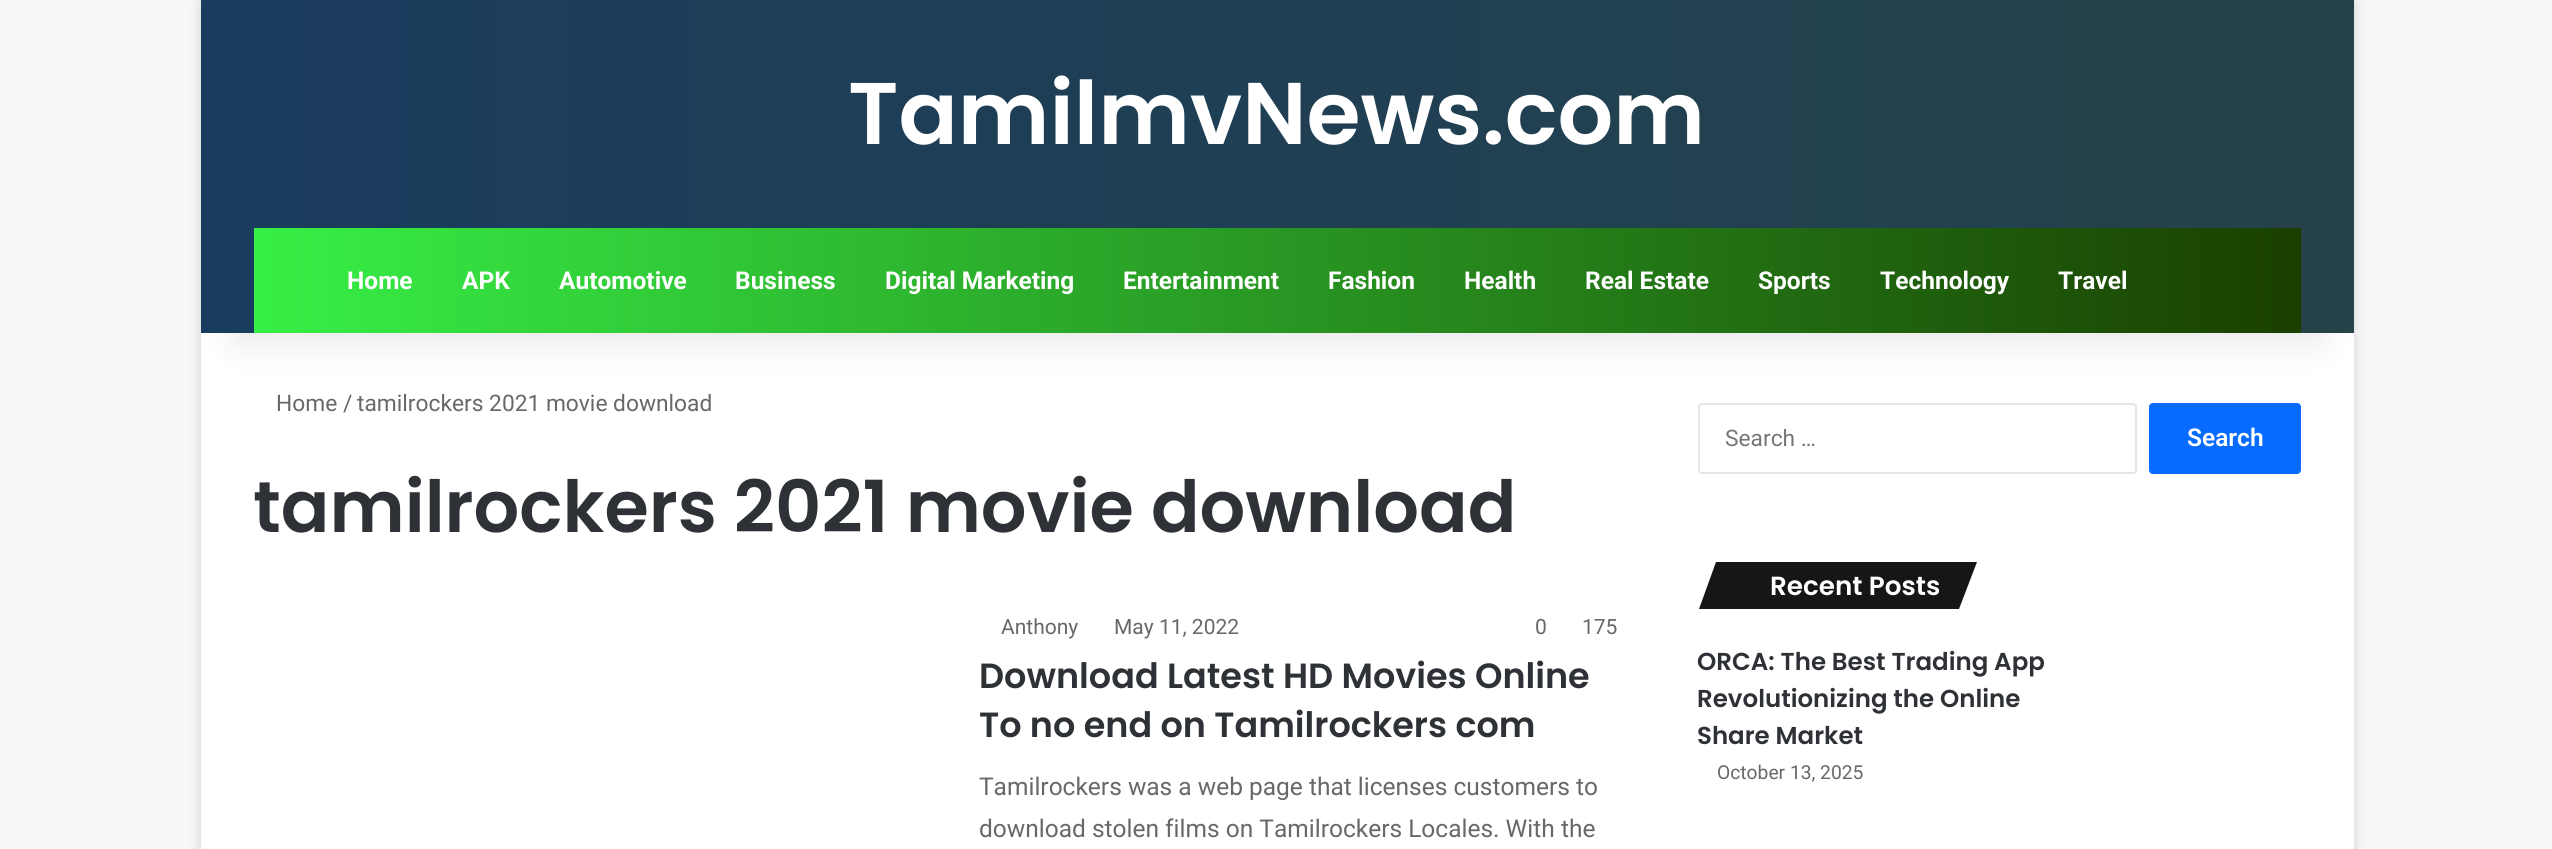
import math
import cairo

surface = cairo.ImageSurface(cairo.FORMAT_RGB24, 2552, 849)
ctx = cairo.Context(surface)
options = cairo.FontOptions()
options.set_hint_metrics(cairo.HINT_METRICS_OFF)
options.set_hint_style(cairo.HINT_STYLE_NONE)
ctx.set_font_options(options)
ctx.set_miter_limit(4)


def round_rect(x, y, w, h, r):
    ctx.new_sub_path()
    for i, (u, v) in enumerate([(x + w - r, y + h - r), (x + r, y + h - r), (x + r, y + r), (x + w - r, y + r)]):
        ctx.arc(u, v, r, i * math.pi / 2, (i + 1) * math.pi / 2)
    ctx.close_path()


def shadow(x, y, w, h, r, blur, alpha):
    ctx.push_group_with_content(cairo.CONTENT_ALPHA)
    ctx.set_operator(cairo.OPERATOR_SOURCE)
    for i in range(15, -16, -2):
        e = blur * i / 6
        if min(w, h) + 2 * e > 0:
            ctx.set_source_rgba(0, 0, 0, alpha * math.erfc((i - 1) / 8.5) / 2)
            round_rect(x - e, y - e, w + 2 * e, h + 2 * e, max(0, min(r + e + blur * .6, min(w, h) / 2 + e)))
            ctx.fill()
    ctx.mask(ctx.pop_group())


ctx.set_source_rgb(0.969, 0.969, 0.969)
ctx.paint()
ctx.set_source_rgb(0.671, 0.671, 0.671)
shadow(201, 2, 2153, 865, 0, 6, 0.5)
ctx.set_source_rgb(1, 1, 1)
ctx.rectangle(201, 333, 2153, 516)
ctx.fill()
ctx.set_source_rgb(0, 0, 0)
shadow(236, 79, 2083, 262, 0, 17.5, 0.1)
gradient = cairo.LinearGradient(201, 166, 2354, 166)
gradient.add_color_stop_rgba(0, 0.102, 0.235, 0.369, 1)
gradient.add_color_stop_rgba(1, 0.145, 0.259, 0.286, 1)
ctx.set_source(gradient)
ctx.rectangle(201, 0, 2153, 333)
ctx.fill()
ctx.select_font_face("Poppins SemiBold")
ctx.set_font_size(87.5)
ctx.set_source_rgb(1, 1, 1)
ctx.move_to(848, 144)
ctx.show_text("TamilmvNews.com")
gradient = cairo.LinearGradient(254, 280, 2301, 280)
gradient.add_color_stop_rgba(0, 0.216, 0.937, 0.275, 1)
gradient.add_color_stop_rgba(1, 0.102, 0.247, 0, 1)
ctx.set_source(gradient)
ctx.rectangle(254, 228, 2047, 105)
ctx.fill()
ctx.select_font_face("Roboto", cairo.FONT_SLANT_NORMAL, cairo.FONT_WEIGHT_BOLD)
ctx.set_font_size(24.5)
ctx.set_source_rgb(1, 1, 1)
ctx.move_to(347, 289)
ctx.show_text("Home")
ctx.move_to(462, 289)
ctx.show_text("APK")
ctx.move_to(559, 289)
ctx.show_text("Automotive")
ctx.move_to(735, 289)
ctx.show_text("Business")
ctx.move_to(885, 289)
ctx.show_text("Digital Marketing")
ctx.move_to(1123, 289)
ctx.show_text("Entertainment")
ctx.move_to(1328, 289)
ctx.show_text("Fashion")
ctx.move_to(1464, 289)
ctx.show_text("Health")
ctx.move_to(1585, 289)
ctx.show_text("Real Estate")
ctx.move_to(1758, 289)
ctx.show_text("Sports")
ctx.move_to(1880, 289)
ctx.show_text("Technology")
ctx.move_to(2058, 289)
ctx.show_text("Travel")
ctx.select_font_face("Roboto")
ctx.set_font_size(22.75)
ctx.set_source_rgb(0.408, 0.408, 0.408)
ctx.move_to(276, 411)
ctx.show_text("Home")
ctx.move_to(343, 411)
ctx.show_text("/")
ctx.move_to(357, 411)
ctx.show_text("tamilrockers 2021 movie download")
ctx.select_font_face("Poppins SemiBold")
ctx.set_font_size(71.75)
ctx.set_source_rgb(0.18, 0.192, 0.212)
ctx.move_to(253, 532)
ctx.show_text("tamilrockers 2021 movie download")
ctx.select_font_face("Roboto")
ctx.set_font_size(21)
ctx.set_source_rgb(0.408, 0.408, 0.408)
ctx.move_to(1001, 634)
ctx.show_text("Anthony")
ctx.move_to(1114, 634)
ctx.show_text("May 11, 2022")
ctx.move_to(1535, 634)
ctx.show_text("0")
ctx.move_to(1582, 634)
ctx.show_text("175")
ctx.select_font_face("Poppins SemiBold")
ctx.set_font_size(35)
ctx.set_source_rgb(0.18, 0.192, 0.212)
ctx.move_to(979, 688)
ctx.show_text("Download Latest HD Movies Online")
ctx.move_to(979, 737)
ctx.show_text("To no end on Tamilrockers com")
ctx.select_font_face("Roboto")
ctx.set_font_size(24.5)
ctx.set_source_rgb(0.408, 0.408, 0.408)
ctx.move_to(979, 795)
ctx.show_text("Tamilrockers was a web page that licenses customers to")
ctx.move_to(979, 837)
ctx.show_text("download stolen films on Tamilrockers Locales. With the")
round_rect(1699, 404, 437, 69, 3)
ctx.set_source_rgb(0.902, 0.902, 0.902)
ctx.stroke()
ctx.set_font_size(22.75)
ctx.set_source_rgb(0.463, 0.463, 0.463)
ctx.move_to(1725, 446)
ctx.show_text("Search …")
ctx.set_source_rgb(0.031, 0.42, 1)
round_rect(2149, 403, 152, 71, 4)
ctx.fill()
ctx.select_font_face("Roboto SemiBold")
ctx.set_font_size(24.5)
ctx.set_source_rgb(1, 1, 1)
ctx.move_to(2187, 446)
ctx.show_text("Search")
ctx.set_source_rgb(0.086, 0.086, 0.086)
ctx.new_path()
ctx.move_to(1716, 562)
ctx.line_to(1977, 562)
ctx.line_to(1959, 609)
ctx.line_to(1699, 609)
ctx.close_path()
ctx.fill()
ctx.select_font_face("Poppins SemiBold")
ctx.set_font_size(26.25)
ctx.set_source_rgb(1, 1, 1)
ctx.move_to(1770, 595)
ctx.show_text("Recent Posts")
ctx.set_font_size(24.5)
ctx.set_source_rgb(0.18, 0.192, 0.212)
ctx.move_to(1697, 670)
ctx.show_text("ORCA: The Best Trading App")
ctx.move_to(1697, 707)
ctx.show_text("Revolutionizing the Online")
ctx.move_to(1697, 744)
ctx.show_text("Share Market")
ctx.select_font_face("Roboto")
ctx.set_font_size(19.25)
ctx.set_source_rgb(0.408, 0.408, 0.408)
ctx.move_to(1717, 779)
ctx.show_text("October 13, 2025")
surface.write_to_png("page.png")
